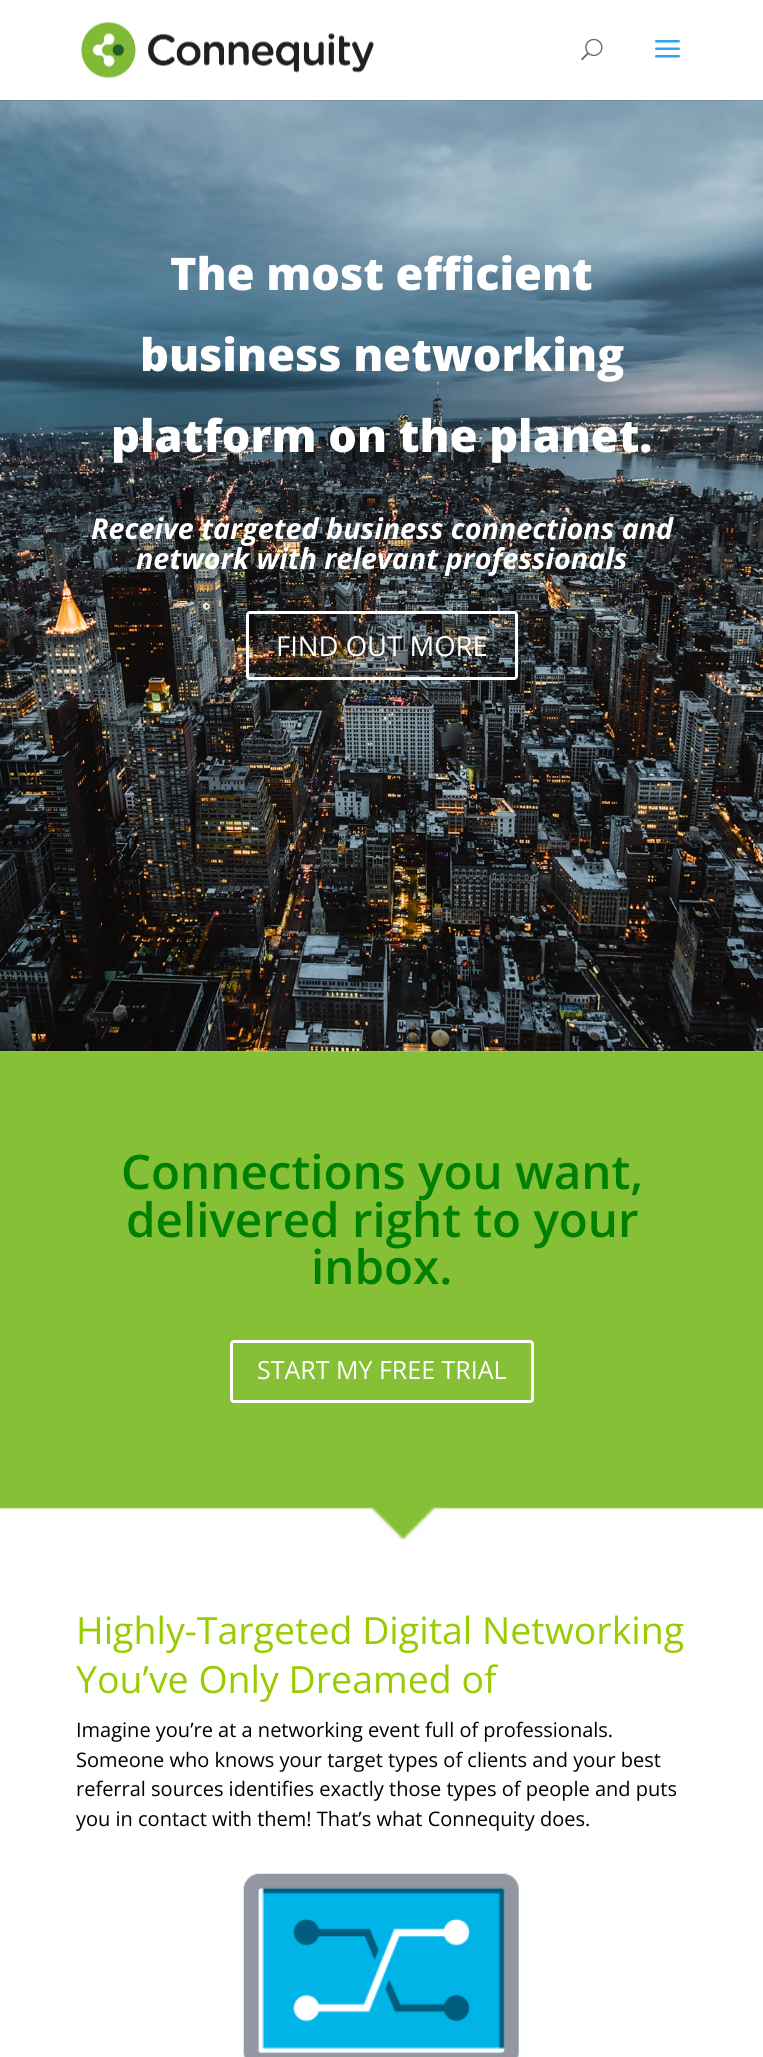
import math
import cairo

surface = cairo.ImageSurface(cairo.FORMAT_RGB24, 763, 2057)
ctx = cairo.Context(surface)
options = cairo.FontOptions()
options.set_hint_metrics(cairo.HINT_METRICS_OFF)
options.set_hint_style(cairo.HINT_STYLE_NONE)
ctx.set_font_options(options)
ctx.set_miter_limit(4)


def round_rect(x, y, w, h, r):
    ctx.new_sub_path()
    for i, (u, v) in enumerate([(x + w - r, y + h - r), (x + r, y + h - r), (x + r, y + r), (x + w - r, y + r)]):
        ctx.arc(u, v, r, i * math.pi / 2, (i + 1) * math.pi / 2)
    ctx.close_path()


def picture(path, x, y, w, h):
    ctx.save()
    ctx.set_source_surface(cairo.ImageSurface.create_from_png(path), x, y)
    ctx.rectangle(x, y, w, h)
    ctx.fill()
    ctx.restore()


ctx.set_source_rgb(1, 1, 1)
ctx.paint()
picture("img4.png", 0, 100, 763, 952)
ctx.set_source_rgba(0, 0, 0, 0.1)
ctx.new_path()
ctx.move_to(0, 100)
ctx.line_to(0, 101)
ctx.line_to(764, 101)
ctx.line_to(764, 1)
ctx.line_to(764, 100)
ctx.close_path()
ctx.fill()
picture("img1.png", 81, 22, 293, 56)
picture("img2.png", 581, 38, 22, 23)
picture("img3.png", 655, 40, 25, 18)
ctx.select_font_face("Open Sans ExtraBold")
ctx.set_font_size(45)
ctx.set_source_rgb(1, 1, 1)
ctx.move_to(170, 290)
ctx.show_text("The most efficient")
ctx.move_to(140, 371)
ctx.show_text("business networking")
ctx.move_to(111, 452)
ctx.show_text("platform on the planet.")
ctx.select_font_face("Open Sans", cairo.FONT_SLANT_ITALIC, cairo.FONT_WEIGHT_BOLD)
ctx.set_font_size(28.75)
ctx.move_to(91, 539)
ctx.show_text("Receive targeted business connections and")
ctx.move_to(136, 569)
ctx.show_text("network with relevant professionals")
round_rect(247.5, 612.5, 269, 66, 2.5)
ctx.set_line_width(3)
ctx.stroke()
ctx.select_font_face("Open Sans")
ctx.set_font_size(27.5)
ctx.move_to(276, 656)
ctx.show_text("FIND OUT MORE")
picture("img5.png", 0, 1051, 763, 488)
ctx.select_font_face("Open Sans SemiBold")
ctx.set_font_size(47.5)
ctx.set_source_rgb(0, 0.502, 0)
ctx.move_to(121, 1189)
ctx.show_text("Connections you want,")
ctx.move_to(126, 1237)
ctx.show_text("delivered right to your")
ctx.move_to(311, 1284)
ctx.show_text("inbox.")
round_rect(231.5, 1341.5, 301, 60, 2.5)
ctx.set_source_rgb(1, 1, 1)
ctx.stroke()
ctx.select_font_face("Open Sans")
ctx.set_font_size(25)
ctx.move_to(257, 1379)
ctx.show_text("START MY FREE TRIAL")
ctx.set_font_size(37.5)
ctx.set_source_rgb(0.6, 0.8, 0)
ctx.move_to(76, 1644)
ctx.show_text("Highly-Targeted Digital Networking")
ctx.move_to(76, 1693)
ctx.show_text("You’ve Only Dreamed of")
ctx.set_font_size(20)
ctx.set_source_rgb(0, 0, 0)
ctx.move_to(76, 1737)
ctx.show_text("Imagine you’re at a networking event full of professionals.")
ctx.move_to(76, 1767)
ctx.show_text("Someone who knows your target types of clients and your best")
ctx.move_to(76, 1796)
ctx.show_text("referral sources identifies exactly those types of people and puts")
ctx.move_to(76, 1826)
ctx.show_text("you in contact with them! That’s what Connequity does.")
picture("img6.png", 243, 1873, 276, 184)
surface.write_to_png("page.png")
